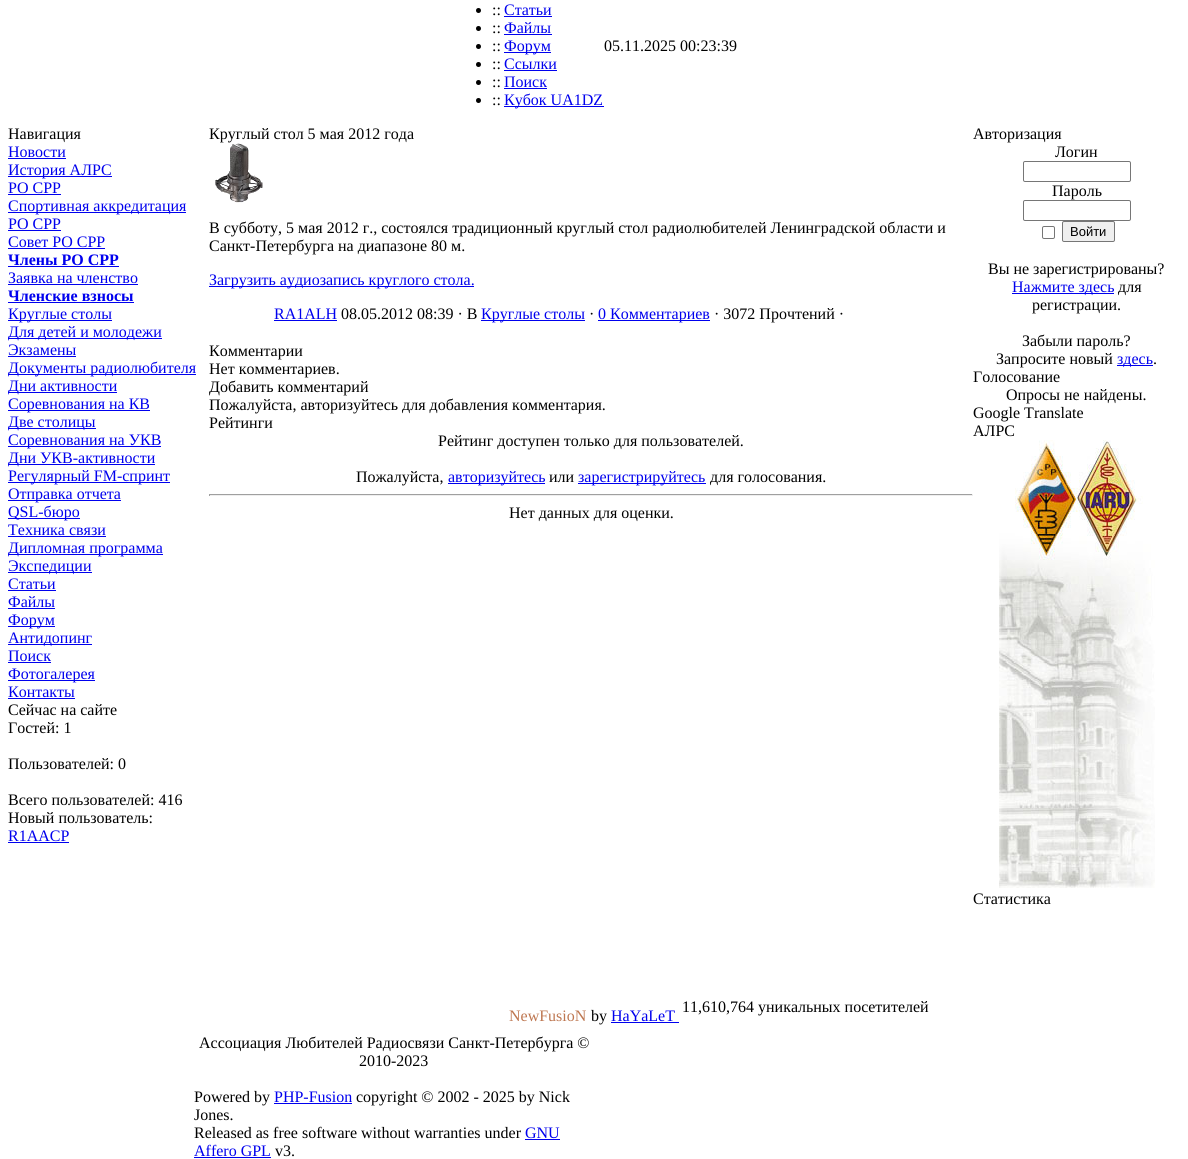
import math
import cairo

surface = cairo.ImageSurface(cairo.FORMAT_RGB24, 1188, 1159)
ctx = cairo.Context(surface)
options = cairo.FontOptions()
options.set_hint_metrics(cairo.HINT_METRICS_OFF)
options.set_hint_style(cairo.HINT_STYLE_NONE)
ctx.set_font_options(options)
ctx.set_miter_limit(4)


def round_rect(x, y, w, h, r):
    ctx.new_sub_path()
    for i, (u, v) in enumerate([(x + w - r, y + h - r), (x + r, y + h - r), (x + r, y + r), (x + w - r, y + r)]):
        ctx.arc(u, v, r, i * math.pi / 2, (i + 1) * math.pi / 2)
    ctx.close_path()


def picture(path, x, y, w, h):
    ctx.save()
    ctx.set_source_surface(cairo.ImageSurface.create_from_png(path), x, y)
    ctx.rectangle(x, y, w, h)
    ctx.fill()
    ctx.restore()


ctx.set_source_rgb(1, 1, 1)
ctx.paint()
ctx.set_source_rgb(0, 0, 0)
ctx.arc(478.5, 10.5, 2.5, 0, 2 * math.pi)
ctx.fill()
ctx.select_font_face("Liberation Serif")
ctx.set_font_size(16)
ctx.move_to(492, 15)
ctx.show_text("::")
ctx.set_source_rgb(0, 0, 0.933)
ctx.move_to(504, 15)
ctx.show_text("Статьи")
ctx.rectangle(504, 16, 48, 1)
ctx.fill()
ctx.set_source_rgb(0, 0, 0)
ctx.arc(478.5, 28.5, 2.5, 0, 2 * math.pi)
ctx.fill()
ctx.move_to(492, 33)
ctx.show_text("::")
ctx.set_source_rgb(0, 0, 0.933)
ctx.move_to(504, 33)
ctx.show_text("Файлы")
ctx.rectangle(504, 34, 48, 1)
ctx.fill()
ctx.set_source_rgb(0, 0, 0)
ctx.arc(478.5, 46.5, 2.5, 0, 2 * math.pi)
ctx.fill()
ctx.move_to(492, 51)
ctx.show_text("::")
ctx.set_source_rgb(0, 0, 0.933)
ctx.rectangle(504, 52, 47, 1)
ctx.fill()
ctx.move_to(504, 51)
ctx.show_text("Форум")
ctx.set_source_rgb(0, 0, 0)
ctx.new_path()
ctx.arc(478.5, 64.5, 2.5, 0, 2 * math.pi)
ctx.fill()
ctx.move_to(492, 69)
ctx.show_text("::")
ctx.set_source_rgb(0, 0, 0.933)
ctx.move_to(504, 69)
ctx.show_text("Ссылки")
ctx.rectangle(504, 70, 53, 1)
ctx.fill()
ctx.set_source_rgb(0, 0, 0)
ctx.arc(478.5, 82.5, 2.5, 0, 2 * math.pi)
ctx.fill()
ctx.move_to(492, 87)
ctx.show_text("::")
ctx.set_source_rgb(0, 0, 0.933)
ctx.move_to(504, 87)
ctx.show_text("Поиск")
ctx.rectangle(504, 88, 43, 1)
ctx.fill()
ctx.set_source_rgb(0, 0, 0)
ctx.arc(478.5, 100.5, 2.5, 0, 2 * math.pi)
ctx.fill()
ctx.move_to(492, 105)
ctx.show_text("::")
ctx.set_source_rgb(0, 0, 0.933)
ctx.rectangle(504, 106, 100, 1)
ctx.fill()
ctx.move_to(504, 105)
ctx.show_text("Кубок UA1DZ")
ctx.set_source_rgb(0, 0, 0)
ctx.move_to(604, 51)
ctx.show_text("05.11.2025 00:23:39")
ctx.move_to(8, 139)
ctx.show_text("Навигация")
ctx.set_source_rgb(0, 0, 0.933)
ctx.move_to(8, 157)
ctx.show_text("Новости")
ctx.rectangle(8, 158, 58, 1)
ctx.fill()
ctx.rectangle(8, 176, 104, 1)
ctx.fill()
ctx.move_to(8, 175)
ctx.show_text("История АЛРС")
ctx.move_to(8, 193)
ctx.show_text("РО СРР")
ctx.rectangle(8, 194, 53, 1)
ctx.fill()
ctx.rectangle(8, 212, 178, 1)
ctx.fill()
ctx.move_to(8, 211)
ctx.show_text("Спортивная аккредитация")
ctx.move_to(8, 229)
ctx.show_text("РО СРР")
ctx.rectangle(8, 230, 53, 1)
ctx.fill()
ctx.move_to(8, 247)
ctx.show_text("Совет РО СРР")
ctx.rectangle(8, 248, 97, 1)
ctx.fill()
ctx.select_font_face("Liberation Serif", cairo.FONT_SLANT_NORMAL, cairo.FONT_WEIGHT_BOLD)
ctx.move_to(8, 265)
ctx.show_text("Члены РО СРР")
ctx.rectangle(8, 266, 111, 1)
ctx.fill()
ctx.select_font_face("Liberation Serif")
ctx.move_to(8, 283)
ctx.show_text("Заявка на членство")
ctx.rectangle(8, 284, 130, 1)
ctx.fill()
ctx.select_font_face("Liberation Serif", cairo.FONT_SLANT_NORMAL, cairo.FONT_WEIGHT_BOLD)
ctx.move_to(8, 301)
ctx.show_text("Членские взносы")
ctx.rectangle(8, 302, 126, 1)
ctx.fill()
ctx.rectangle(8, 320, 104, 1)
ctx.fill()
ctx.select_font_face("Liberation Serif")
ctx.move_to(8, 319)
ctx.show_text("Круглые столы")
ctx.rectangle(8, 338, 154, 1)
ctx.fill()
ctx.move_to(8, 337)
ctx.show_text("Для детей и молодежи")
ctx.move_to(8, 355)
ctx.show_text("Экзамены")
ctx.rectangle(8, 356, 68, 1)
ctx.fill()
ctx.rectangle(8, 374, 188, 1)
ctx.fill()
ctx.move_to(8, 373)
ctx.show_text("Документы радиолюбителя")
ctx.rectangle(8, 392, 109, 1)
ctx.fill()
ctx.move_to(8, 391)
ctx.show_text("Дни активности")
ctx.rectangle(8, 410, 142, 1)
ctx.fill()
ctx.move_to(8, 409)
ctx.show_text("Соревнования на КВ")
ctx.rectangle(8, 428, 88, 1)
ctx.fill()
ctx.move_to(8, 427)
ctx.show_text("Две столицы")
ctx.rectangle(8, 446, 153, 1)
ctx.fill()
ctx.move_to(8, 445)
ctx.show_text("Соревнования на УКВ")
ctx.rectangle(8, 464, 147, 1)
ctx.fill()
ctx.move_to(8, 463)
ctx.show_text("Дни УКВ-активности")
ctx.rectangle(8, 482, 162, 1)
ctx.fill()
ctx.move_to(8, 481)
ctx.show_text("Регулярный FM-спринт")
ctx.rectangle(8, 500, 113, 1)
ctx.fill()
ctx.move_to(8, 499)
ctx.show_text("Отправка отчета")
ctx.rectangle(8, 518, 72, 1)
ctx.fill()
ctx.move_to(8, 517)
ctx.show_text("QSL-бюро")
ctx.move_to(8, 535)
ctx.show_text("Техника связи")
ctx.rectangle(8, 536, 98, 1)
ctx.fill()
ctx.rectangle(8, 554, 155, 1)
ctx.fill()
ctx.move_to(8, 553)
ctx.show_text("Дипломная программа")
ctx.rectangle(8, 572, 84, 1)
ctx.fill()
ctx.move_to(8, 571)
ctx.show_text("Экспедиции")
ctx.move_to(8, 589)
ctx.show_text("Статьи")
ctx.rectangle(8, 590, 48, 1)
ctx.fill()
ctx.move_to(8, 607)
ctx.show_text("Файлы")
ctx.rectangle(8, 608, 47, 1)
ctx.fill()
ctx.rectangle(8, 626, 47, 1)
ctx.fill()
ctx.move_to(8, 625)
ctx.show_text("Форум")
ctx.rectangle(8, 644, 84, 1)
ctx.fill()
ctx.move_to(8, 643)
ctx.show_text("Антидопинг")
ctx.move_to(8, 661)
ctx.show_text("Поиск")
ctx.rectangle(8, 662, 43, 1)
ctx.fill()
ctx.rectangle(8, 680, 87, 1)
ctx.fill()
ctx.move_to(8, 679)
ctx.show_text("Фотогалерея")
ctx.move_to(8, 697)
ctx.show_text("Контакты")
ctx.rectangle(8, 698, 67, 1)
ctx.fill()
ctx.set_source_rgb(0, 0, 0)
ctx.move_to(8, 715)
ctx.show_text("Сейчас на сайте")
ctx.move_to(8, 733)
ctx.show_text("Гостей: 1")
ctx.move_to(8, 769)
ctx.show_text("Пользователей: 0")
ctx.move_to(8, 805)
ctx.show_text("Всего пользователей: 416")
ctx.move_to(8, 823)
ctx.show_text("Новый пользователь:")
ctx.set_source_rgb(0, 0, 0.933)
ctx.move_to(8, 841)
ctx.show_text("R1AACP")
ctx.rectangle(8, 842, 61, 1)
ctx.fill()
ctx.set_source_rgb(0, 0, 0)
ctx.move_to(209, 139)
ctx.show_text("Круглый стол 5 мая 2012 года")
picture("img1.png", 215, 143, 48, 60)
ctx.move_to(209, 233)
ctx.show_text("В субботу, 5 мая 2012 г., состоялся традиционный круглый стол радиолюбителей Ленинградской области и")
ctx.move_to(209, 251)
ctx.show_text("Санкт-Петербурга на диапазоне 80 м.")
ctx.set_source_rgb(0, 0, 0.933)
ctx.rectangle(209, 286, 265, 1)
ctx.fill()
ctx.move_to(209, 285)
ctx.show_text("Загрузить аудиозапись круглого стола.")
ctx.move_to(274, 319)
ctx.show_text("RA1ALH")
ctx.rectangle(274, 320, 63, 1)
ctx.fill()
ctx.set_source_rgb(0, 0, 0)
ctx.move_to(341, 319)
ctx.show_text("08.05.2012 08:39 · В")
ctx.set_source_rgb(0, 0, 0.933)
ctx.rectangle(481, 320, 104, 1)
ctx.fill()
ctx.move_to(481, 319)
ctx.show_text("Круглые столы")
ctx.set_source_rgb(0, 0, 0)
ctx.move_to(589, 319)
ctx.show_text("·")
ctx.set_source_rgb(0, 0, 0.933)
ctx.rectangle(598, 320, 112, 1)
ctx.fill()
ctx.move_to(598, 319)
ctx.show_text("0 Комментариев")
ctx.set_source_rgb(0, 0, 0)
ctx.move_to(714, 319)
ctx.show_text("· 3072 Прочтений ·")
ctx.move_to(209, 356)
ctx.show_text("Комментарии")
ctx.move_to(209, 374)
ctx.show_text("Нет комментариев.")
ctx.move_to(209, 392)
ctx.show_text("Добавить комментарий")
ctx.move_to(209, 410)
ctx.show_text("Пожалуйста, авторизуйтесь для добавления комментария.")
ctx.move_to(209, 428)
ctx.show_text("Рейтинги")
ctx.move_to(438, 446)
ctx.show_text("Рейтинг доступен только для пользователей.")
ctx.move_to(356, 482)
ctx.show_text("Пожалуйста,")
ctx.set_source_rgb(0, 0, 0.933)
ctx.rectangle(448, 483, 97, 1)
ctx.fill()
ctx.move_to(448, 482)
ctx.show_text("авторизуйтесь")
ctx.set_source_rgb(0, 0, 0)
ctx.move_to(549, 482)
ctx.show_text("или")
ctx.set_source_rgb(0, 0, 0.933)
ctx.rectangle(578, 483, 128, 1)
ctx.fill()
ctx.move_to(578, 482)
ctx.show_text("зарегистрируйтесь")
ctx.set_source_rgb(0, 0, 0)
ctx.move_to(710, 482)
ctx.show_text("для голосования.")
ctx.set_source_rgb(0.624, 0.624, 0.624)
ctx.rectangle(209, 494, 764, 1)
ctx.fill()
ctx.set_source_rgb(0.933, 0.933, 0.933)
ctx.rectangle(972, 494, 1, 2)
ctx.fill()
ctx.rectangle(209, 495, 764, 1)
ctx.fill()
ctx.set_source_rgb(0.624, 0.624, 0.624)
ctx.rectangle(209, 494, 1, 2)
ctx.fill()
ctx.set_source_rgb(0, 0, 0)
ctx.move_to(509, 518)
ctx.show_text("Нет данных для оценки.")
ctx.move_to(973, 139)
ctx.show_text("Авторизация")
ctx.move_to(1055, 157)
ctx.show_text("Логин")
round_rect(1023.5, 161.5, 107, 20, 1.5)
ctx.set_source_rgb(0.463, 0.463, 0.463)
ctx.set_line_width(1)
ctx.stroke()
ctx.set_source_rgb(0, 0, 0)
ctx.move_to(1052, 196)
ctx.show_text("Пароль")
round_rect(1023.5, 200.5, 107, 20, 1.5)
ctx.set_source_rgb(0.463, 0.463, 0.463)
ctx.stroke()
round_rect(1042.5, 226.5, 12, 12, 1.5)
ctx.stroke()
ctx.set_source_rgb(0.937, 0.937, 0.937)
round_rect(1062.5, 221.5, 52, 20, 1.5)
ctx.fill_preserve()
ctx.set_source_rgb(0.463, 0.463, 0.463)
ctx.stroke()
ctx.select_font_face("Liberation Sans")
ctx.set_font_size(13)
ctx.set_source_rgb(0, 0, 0)
ctx.move_to(1070, 236)
ctx.show_text("Войти")
ctx.select_font_face("Liberation Serif")
ctx.set_font_size(16)
ctx.move_to(988, 274)
ctx.show_text("Вы не зарегистрированы?")
ctx.set_source_rgb(0, 0, 0.933)
ctx.rectangle(1012, 293, 102, 1)
ctx.fill()
ctx.move_to(1012, 292)
ctx.show_text("Нажмите здесь")
ctx.set_source_rgb(0, 0, 0)
ctx.move_to(1118, 292)
ctx.show_text("для")
ctx.move_to(1032, 310)
ctx.show_text("регистрации.")
ctx.move_to(1022, 346)
ctx.show_text("Забыли пароль?")
ctx.move_to(996, 364)
ctx.show_text("Запросите новый")
ctx.set_source_rgb(0, 0, 0.933)
ctx.rectangle(1117, 365, 36, 1)
ctx.fill()
ctx.move_to(1117, 364)
ctx.show_text("здесь")
ctx.set_source_rgb(0, 0, 0)
ctx.move_to(1153, 364)
ctx.show_text(".")
ctx.move_to(973, 382)
ctx.show_text("Голосование")
ctx.move_to(1006, 400)
ctx.show_text("Опросы не найдены.")
ctx.move_to(973, 418)
ctx.show_text("Google Translate")
ctx.move_to(973, 436)
ctx.show_text("АЛРС")
picture("img2.png", 999, 440, 156, 448)
ctx.move_to(973, 904)
ctx.show_text("Статистика")
ctx.set_source_rgb(0.745, 0.467, 0.318)
ctx.move_to(509, 1021)
ctx.show_text("NewFusioN")
ctx.set_source_rgb(0, 0, 0)
ctx.move_to(591, 1021)
ctx.show_text("by")
ctx.set_source_rgb(0, 0, 0.933)
ctx.move_to(611, 1021)
ctx.show_text("HaYaLeT")
ctx.rectangle(611, 1022, 68, 1)
ctx.fill()
ctx.set_source_rgb(0, 0, 0)
ctx.move_to(682, 1012)
ctx.show_text("11,610,764 уникальных посетителей")
ctx.move_to(199, 1048)
ctx.show_text("Ассоциация Любителей Радиосвязи Санкт-Петербурга ©")
ctx.move_to(359, 1066)
ctx.show_text("2010-2023")
ctx.move_to(194, 1102)
ctx.show_text("Powered by")
ctx.set_source_rgb(0, 0, 0.933)
ctx.move_to(274, 1102)
ctx.show_text("PHP-Fusion")
ctx.rectangle(274, 1103, 78, 1)
ctx.fill()
ctx.set_source_rgb(0, 0, 0)
ctx.move_to(356, 1102)
ctx.show_text("copyright © 2002 - 2025 by Nick")
ctx.move_to(194, 1120)
ctx.show_text("Jones.")
ctx.move_to(194, 1138)
ctx.show_text("Released as free software without warranties under")
ctx.set_source_rgb(0, 0, 0.933)
ctx.move_to(525, 1138)
ctx.show_text("GNU")
ctx.rectangle(525, 1139, 35, 1)
ctx.fill()
ctx.move_to(194, 1156)
ctx.show_text("Affero GPL")
ctx.rectangle(194, 1157, 77, 1)
ctx.fill()
ctx.set_source_rgb(0, 0, 0)
ctx.move_to(275, 1156)
ctx.show_text("v3.")
surface.write_to_png("page.png")
